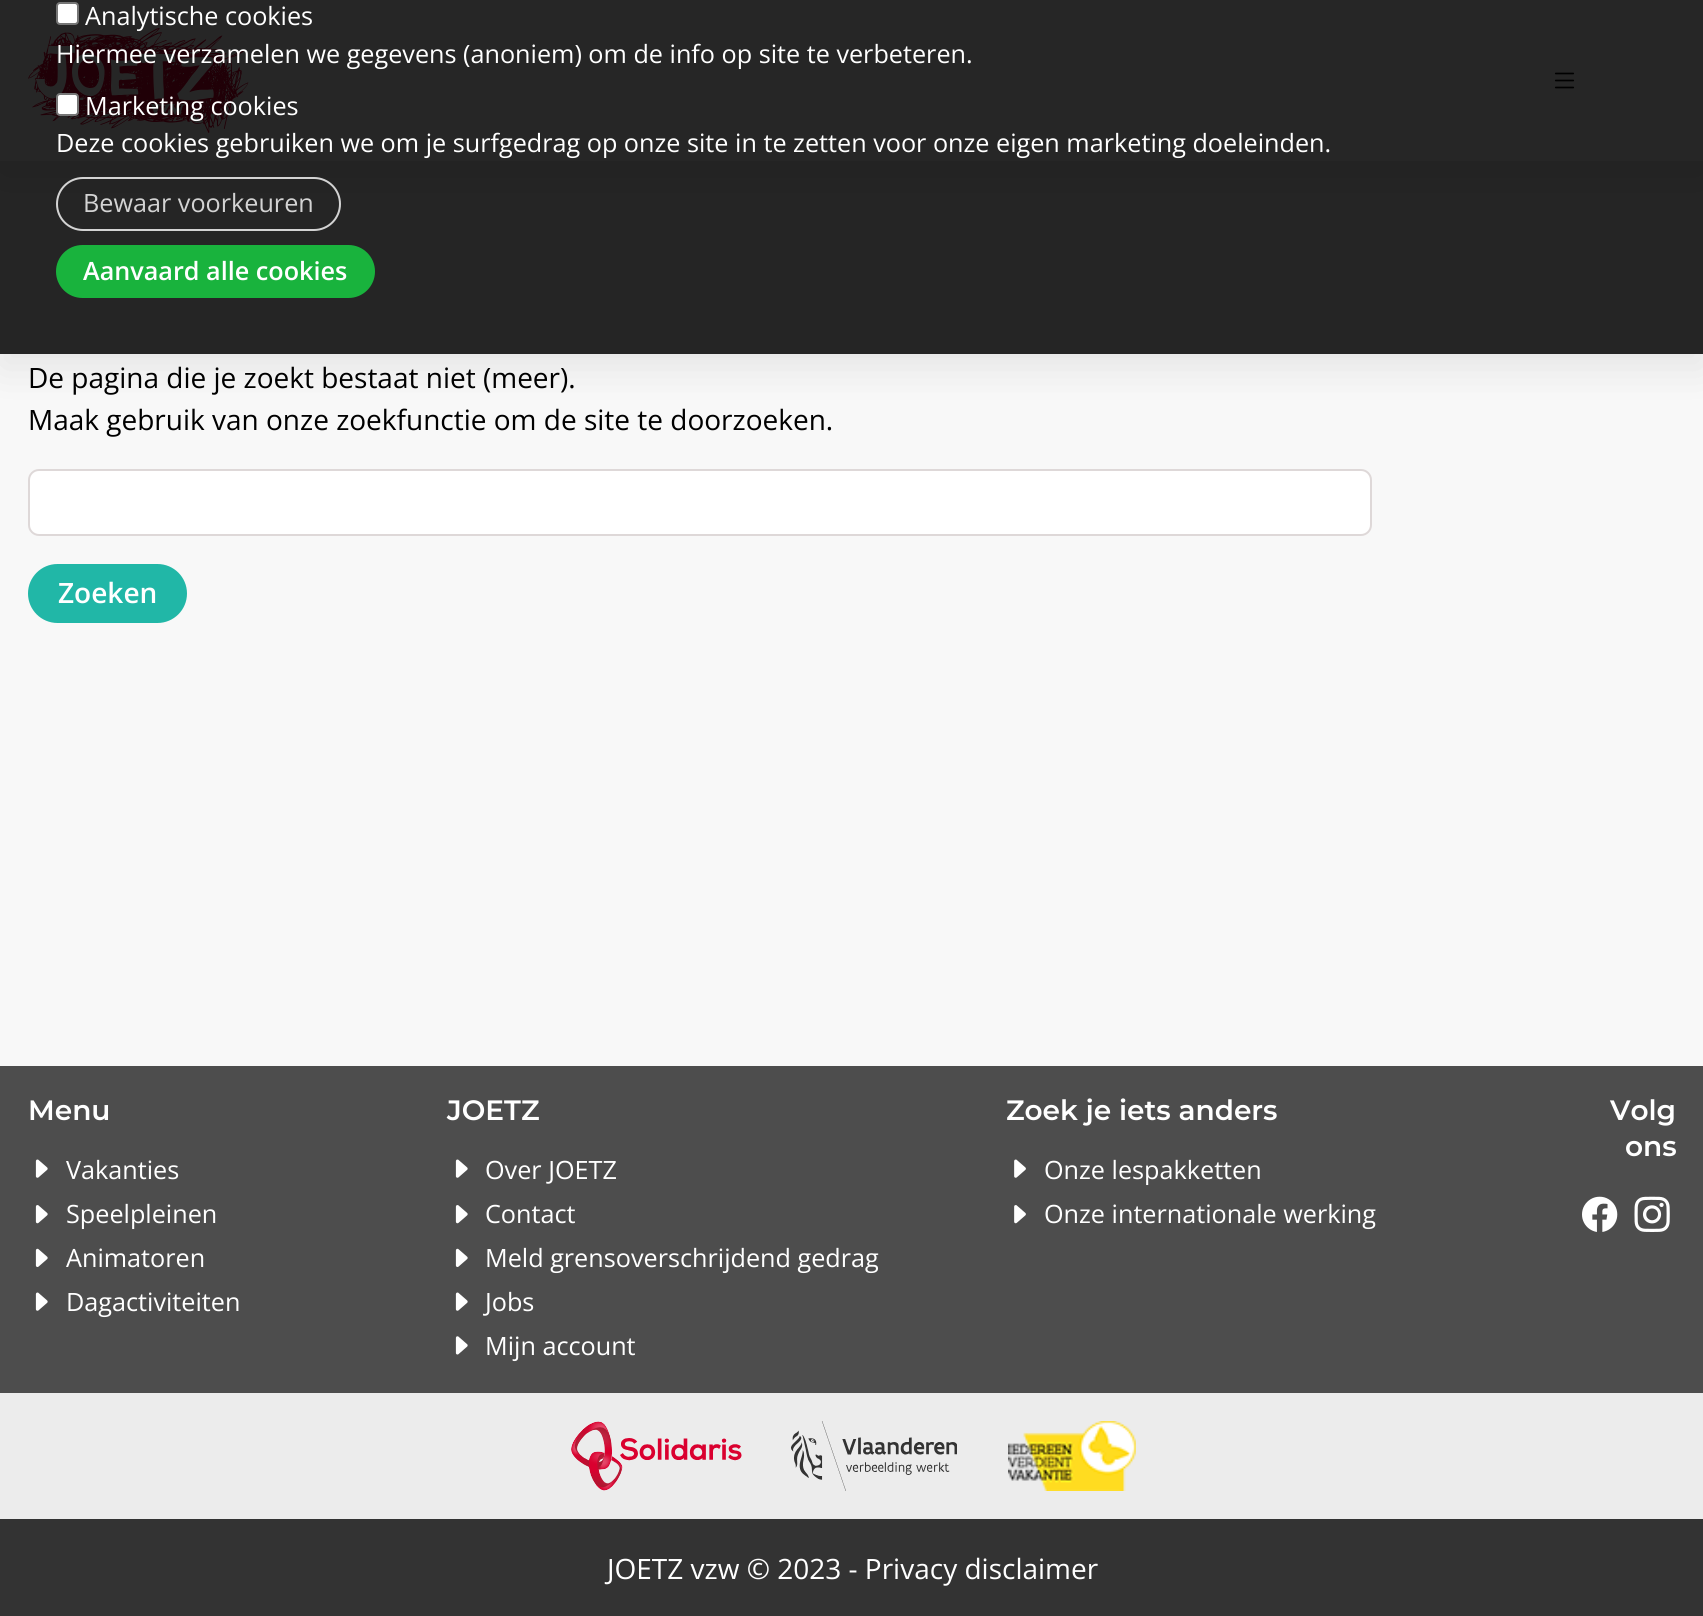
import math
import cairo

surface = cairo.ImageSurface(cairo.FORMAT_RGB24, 1703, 1616)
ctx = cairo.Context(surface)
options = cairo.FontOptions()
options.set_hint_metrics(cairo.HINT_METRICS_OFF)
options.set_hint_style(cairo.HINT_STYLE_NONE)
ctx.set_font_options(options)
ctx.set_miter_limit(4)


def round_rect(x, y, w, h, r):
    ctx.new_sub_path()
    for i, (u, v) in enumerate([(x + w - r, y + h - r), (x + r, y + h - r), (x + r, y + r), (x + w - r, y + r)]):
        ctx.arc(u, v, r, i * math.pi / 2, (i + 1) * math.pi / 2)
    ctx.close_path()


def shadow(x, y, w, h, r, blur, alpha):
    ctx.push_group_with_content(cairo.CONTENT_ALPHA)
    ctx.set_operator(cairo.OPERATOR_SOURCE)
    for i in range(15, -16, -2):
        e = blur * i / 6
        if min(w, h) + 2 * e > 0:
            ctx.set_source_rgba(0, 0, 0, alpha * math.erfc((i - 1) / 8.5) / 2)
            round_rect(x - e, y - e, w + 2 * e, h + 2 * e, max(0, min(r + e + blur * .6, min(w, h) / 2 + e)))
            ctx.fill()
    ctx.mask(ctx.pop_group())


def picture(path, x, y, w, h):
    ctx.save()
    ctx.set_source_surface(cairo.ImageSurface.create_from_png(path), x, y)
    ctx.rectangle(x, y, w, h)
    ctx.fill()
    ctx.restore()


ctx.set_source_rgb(0.969, 0.969, 0.969)
ctx.paint()
ctx.set_source_rgb(0, 0, 0)
shadow(0, 14, 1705, 161, 0, 21, 0.08)
ctx.set_source_rgb(1, 1, 1)
ctx.rectangle(0, 0, 1703, 161)
ctx.fill()
picture("img1.png", 28, 28, 221, 105)
picture("img2.png", 1554, 72, 21, 17)
ctx.save()
ctx.set_fill_rule(cairo.FILL_RULE_EVEN_ODD)
ctx.new_path()
ctx.move_to(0, 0)
ctx.line_to(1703, 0)
ctx.line_to(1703, 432)
ctx.line_to(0, 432)
ctx.close_path()
ctx.move_to(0, -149)
ctx.line_to(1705, -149)
ctx.line_to(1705, 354)
ctx.line_to(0, 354)
ctx.close_path()
ctx.clip()
ctx.set_source_rgb(0, 0, 0)
shadow(0, -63, 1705, 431, 0, 21, 0.08)
ctx.restore()
ctx.set_source_rgba(0, 0, 0, 0.85)
ctx.rectangle(0, 0, 1703, 354)
ctx.fill()
ctx.set_source_rgb(1, 1, 1)
round_rect(57, 3, 21, 21, 3)
ctx.fill_preserve()
ctx.set_source_rgb(0.463, 0.463, 0.463)
ctx.stroke()
ctx.select_font_face("Open Sans")
ctx.set_font_size(25.2)
ctx.set_source_rgb(1, 1, 1)
ctx.move_to(85, 25)
ctx.show_text("Analytische cookies")
ctx.move_to(56, 63)
ctx.show_text("Hiermee verzamelen we gegevens (anoniem) om de info op site te verbeteren.")
round_rect(57, 94, 21, 21, 3)
ctx.fill_preserve()
ctx.set_source_rgb(0.463, 0.463, 0.463)
ctx.stroke()
ctx.set_source_rgb(1, 1, 1)
ctx.move_to(85, 115)
ctx.show_text("Marketing cookies")
ctx.move_to(56, 152)
ctx.show_text("Deze cookies gebruiken we om je surfgedrag op onze site in te zetten voor onze eigen marketing doeleinden.")
round_rect(57, 178, 283, 52, 26)
ctx.set_source_rgb(0.827, 0.827, 0.827)
ctx.stroke()
ctx.move_to(83, 212)
ctx.show_text("Bewaar voorkeuren")
ctx.set_source_rgb(0.098, 0.702, 0.239)
round_rect(57, 246, 317, 51, 25.5)
ctx.fill_preserve()
ctx.stroke()
ctx.select_font_face("Open Sans SemiBold")
ctx.set_source_rgb(1, 1, 1)
ctx.move_to(83, 280)
ctx.show_text("Aanvaard alle cookies")
ctx.select_font_face("Open Sans")
ctx.set_font_size(28)
ctx.set_source_rgb(0, 0, 0)
ctx.move_to(28, 388)
ctx.show_text("De pagina die je zoekt bestaat niet (meer).")
ctx.move_to(28, 430)
ctx.show_text("Maak gebruik van onze zoekfunctie om de site te doorzoeken.")
ctx.set_source_rgb(1, 1, 1)
round_rect(29, 470, 1342, 65, 10)
ctx.fill_preserve()
ctx.set_source_rgb(0.871, 0.847, 0.847)
ctx.stroke()
ctx.set_source_rgb(0.129, 0.718, 0.655)
round_rect(29, 565, 157, 57, 28.5)
ctx.fill_preserve()
ctx.stroke()
ctx.select_font_face("Open Sans SemiBold")
ctx.set_source_rgb(1, 1, 1)
ctx.move_to(58, 603)
ctx.show_text("Zoeken")
ctx.set_source_rgb(0.302, 0.302, 0.302)
ctx.rectangle(0, 1066, 1703, 327)
ctx.fill()
ctx.select_font_face("Montserrat SemiBold")
ctx.set_source_rgb(1, 1, 1)
ctx.move_to(28, 1120)
ctx.show_text("Menu")
picture("img3.png", 35, 1159, 13, 19)
ctx.select_font_face("Open Sans")
ctx.set_font_size(25.2)
ctx.move_to(66, 1179)
ctx.show_text("Vakanties")
picture("img4.png", 35, 1205, 13, 19)
ctx.move_to(66, 1223)
ctx.show_text("Speelpleinen")
picture("img5.png", 35, 1248, 13, 19)
ctx.move_to(66, 1267)
ctx.show_text("Animatoren")
picture("img3.png", 35, 1292, 13, 19)
ctx.move_to(66, 1311)
ctx.show_text("Dagactiviteiten")
ctx.select_font_face("Montserrat SemiBold")
ctx.set_font_size(28)
ctx.move_to(447, 1120)
ctx.show_text("JOETZ")
picture("img3.png", 455, 1159, 13, 19)
ctx.select_font_face("Open Sans")
ctx.set_font_size(25.2)
ctx.move_to(485, 1179)
ctx.show_text("Over JOETZ")
picture("img4.png", 455, 1205, 13, 19)
ctx.move_to(485, 1223)
ctx.show_text("Contact")
picture("img5.png", 455, 1248, 13, 19)
ctx.move_to(485, 1267)
ctx.show_text("Meld grensoverschrijdend gedrag")
picture("img3.png", 455, 1292, 13, 19)
ctx.move_to(485, 1311)
ctx.show_text("Jobs")
picture("img6.png", 455, 1336, 13, 19)
ctx.move_to(485, 1355)
ctx.show_text("Mijn account")
ctx.select_font_face("Montserrat SemiBold")
ctx.set_font_size(28)
ctx.move_to(1006, 1120)
ctx.show_text("Zoek je iets anders")
picture("img7.png", 1014, 1159, 12, 19)
ctx.select_font_face("Open Sans")
ctx.set_font_size(25.2)
ctx.move_to(1044, 1179)
ctx.show_text("Onze lespakketten")
picture("img8.png", 1014, 1205, 12, 19)
ctx.move_to(1044, 1223)
ctx.show_text("Onze internationale werking")
ctx.select_font_face("Montserrat SemiBold")
ctx.set_font_size(28)
ctx.move_to(1610, 1120)
ctx.show_text("Volg")
ctx.move_to(1625, 1156)
ctx.show_text("ons")
picture("img9.png", 1582, 1196, 36, 36)
picture("img10.png", 1634, 1196, 36, 36)
ctx.set_source_rgb(0.922, 0.922, 0.922)
ctx.rectangle(0, 1393, 1703, 126)
ctx.fill()
picture("img11.png", 571, 1421, 171, 70)
picture("img12.png", 791, 1421, 166, 70)
picture("img13.png", 1008, 1421, 128, 70)
ctx.set_source_rgb(0.2, 0.2, 0.2)
ctx.rectangle(0, 1519, 1703, 97)
ctx.fill()
ctx.select_font_face("Open Sans")
ctx.set_source_rgb(1, 1, 1)
ctx.move_to(607, 1579)
ctx.show_text("JOETZ vzw © 2023 - Privacy disclaimer")
surface.write_to_png("page.png")
